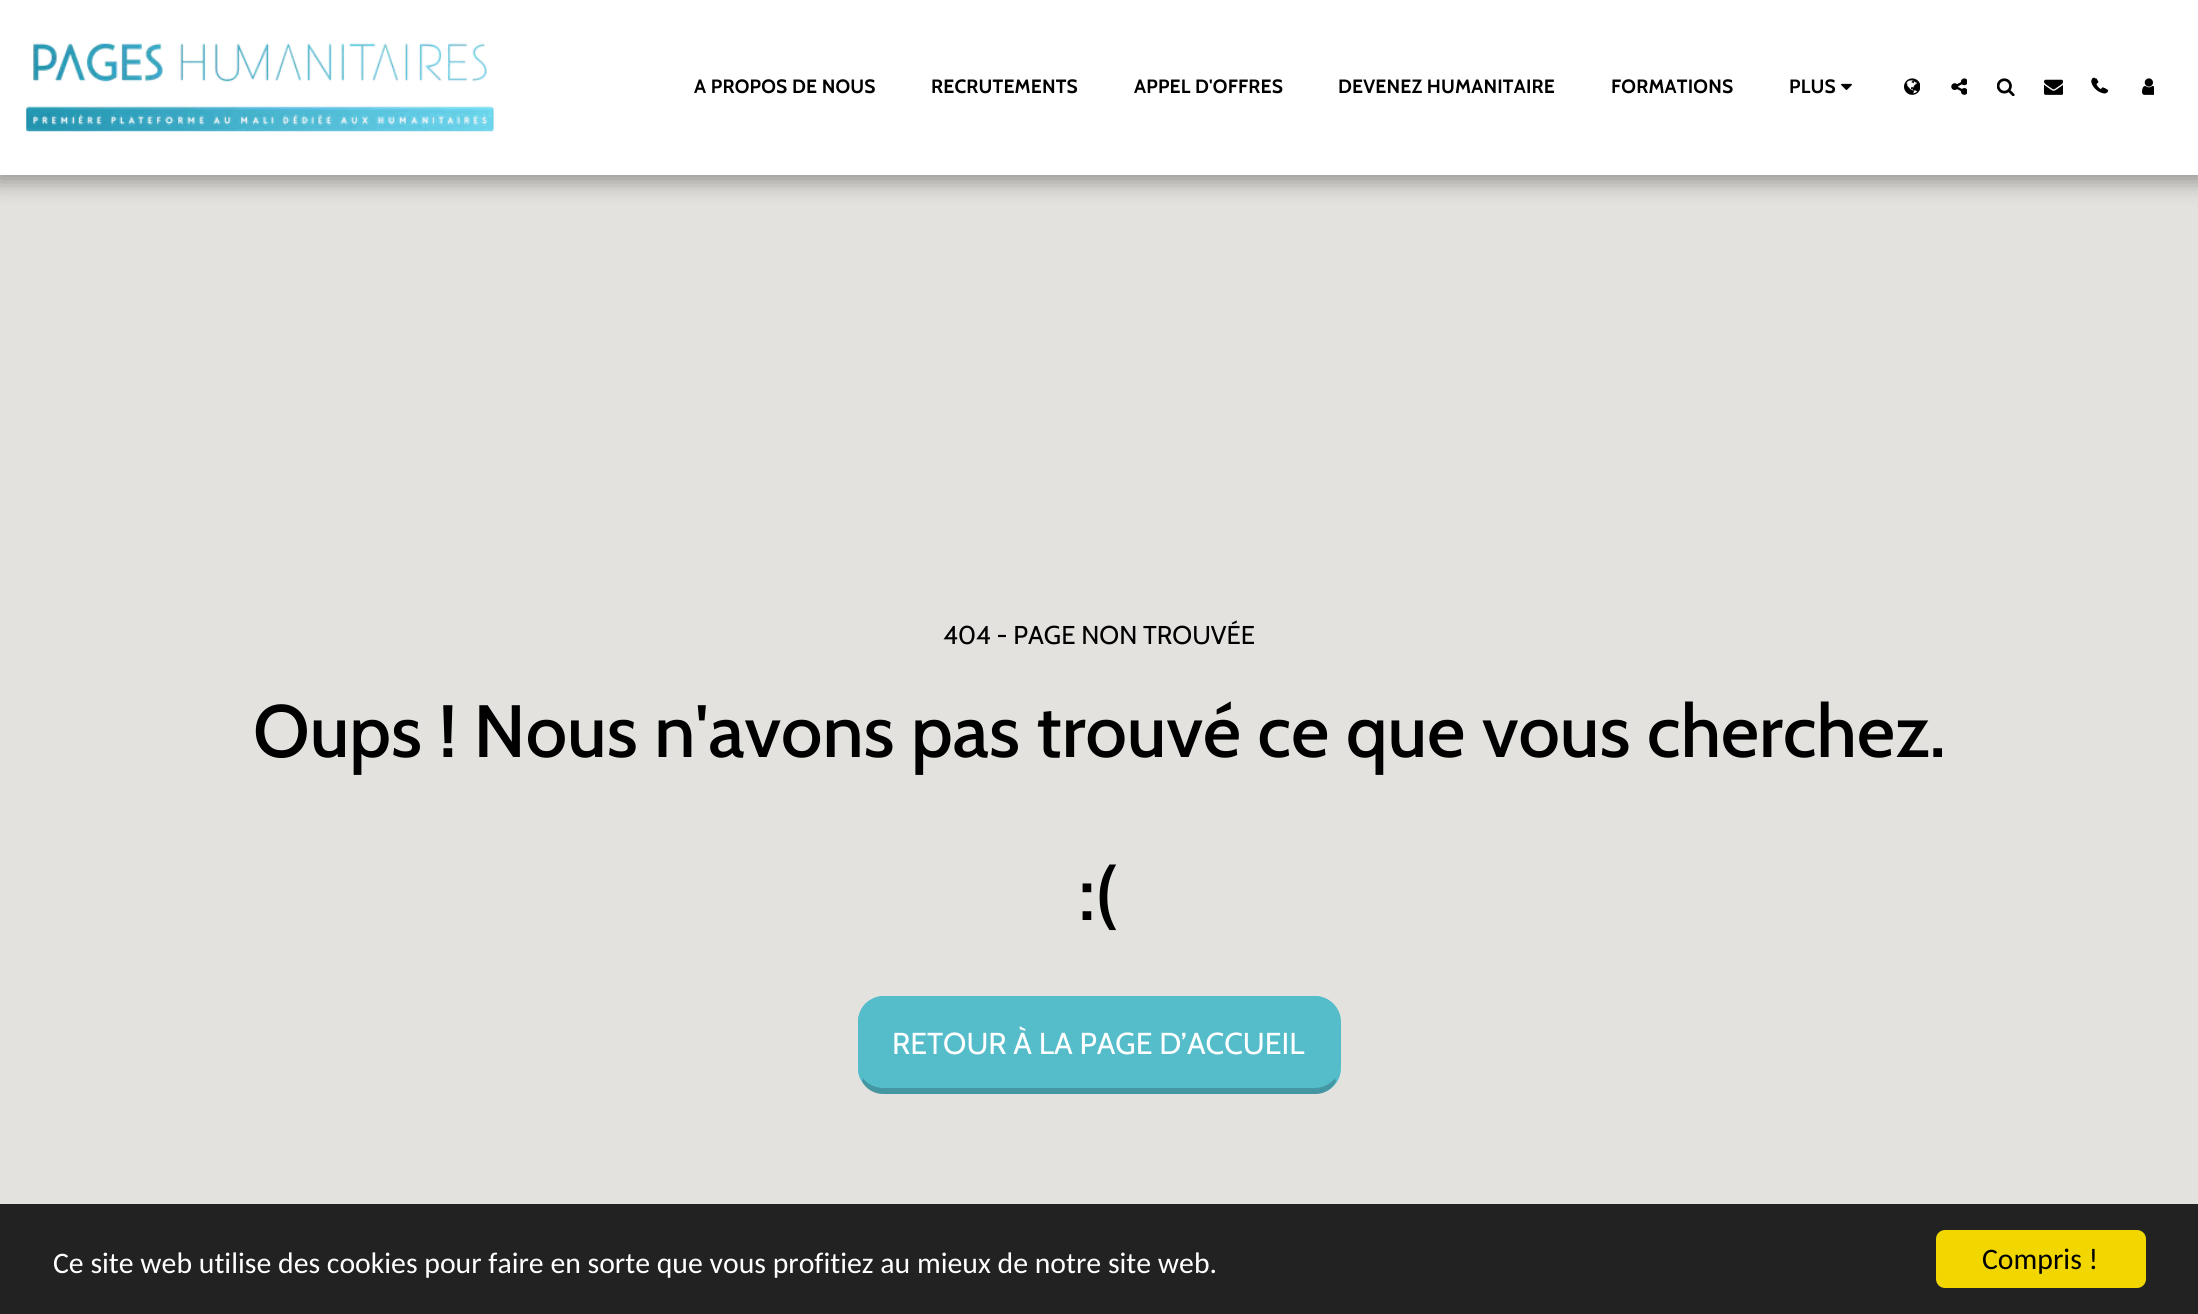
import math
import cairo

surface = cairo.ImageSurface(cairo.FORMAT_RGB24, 2198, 1314)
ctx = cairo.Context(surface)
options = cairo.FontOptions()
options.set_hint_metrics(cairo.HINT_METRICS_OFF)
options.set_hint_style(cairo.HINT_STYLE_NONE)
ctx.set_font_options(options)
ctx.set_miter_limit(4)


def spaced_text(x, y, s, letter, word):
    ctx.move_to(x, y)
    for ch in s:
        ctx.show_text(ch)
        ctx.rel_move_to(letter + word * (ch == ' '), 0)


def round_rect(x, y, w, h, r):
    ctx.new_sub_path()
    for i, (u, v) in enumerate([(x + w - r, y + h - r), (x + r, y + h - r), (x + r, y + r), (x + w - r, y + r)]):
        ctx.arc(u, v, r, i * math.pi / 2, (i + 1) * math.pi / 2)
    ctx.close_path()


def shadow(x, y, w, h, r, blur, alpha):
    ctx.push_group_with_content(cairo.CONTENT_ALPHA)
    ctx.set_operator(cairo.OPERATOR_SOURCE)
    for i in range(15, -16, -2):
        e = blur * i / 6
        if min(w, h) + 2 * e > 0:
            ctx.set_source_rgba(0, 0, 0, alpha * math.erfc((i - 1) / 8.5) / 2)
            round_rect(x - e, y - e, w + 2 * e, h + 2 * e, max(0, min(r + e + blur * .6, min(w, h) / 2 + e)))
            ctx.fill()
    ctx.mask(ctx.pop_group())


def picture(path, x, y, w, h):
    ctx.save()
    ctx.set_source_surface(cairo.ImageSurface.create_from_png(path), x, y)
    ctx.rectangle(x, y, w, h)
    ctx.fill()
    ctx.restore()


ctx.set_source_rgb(0.89, 0.886, 0.871)
ctx.paint()
ctx.set_source_rgb(0, 0, 0)
shadow(-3, 0, 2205, 182, 0, 10.5, 0.35)
ctx.set_source_rgb(1, 1, 1)
ctx.rectangle(0, 0, 2198, 175)
ctx.fill()
picture("img1.png", 26, 43, 468, 89)
ctx.select_font_face("Cabin", cairo.FONT_SLANT_NORMAL, cairo.FONT_WEIGHT_BOLD)
ctx.set_font_size(19.25)
ctx.set_source_rgb(0, 0, 0)
spaced_text(694, 93, "A PROPOS DE NOUS", 0.2, 0)
spaced_text(931, 93, "RECRUTEMENTS", 0.2, 0)
spaced_text(1134, 93, "APPEL D'OFFRES", 0.2, 0)
spaced_text(1338, 93, "DEVENEZ HUMANITAIRE", 0.2, 0)
spaced_text(1611, 93, "FORMATIONS", 0.2, 0)
spaced_text(1789, 93, "PLUS", 0.2, 0)
picture("img2.png", 1841, 83, 11, 7)
picture("img3.png", 1904, 78, 16, 17)
picture("img4.png", 1951, 78, 16, 17)
picture("img5.png", 1997, 78, 18, 18)
picture("img6.png", 2044, 79, 19, 16)
picture("img7.png", 2094, 78, 15, 16)
picture("img8.png", 2091, 77, 16, 16)
picture("img9.png", 2142, 78, 12, 17)
ctx.select_font_face("Cabin")
ctx.set_font_size(25.75)
ctx.move_to(943, 644)
ctx.show_text("404 - PAGE NON TROUVÉE")
ctx.select_font_face("Cabin Medium")
ctx.set_font_size(74)
ctx.move_to(253, 757)
ctx.show_text("Oups ! Nous n'avons pas trouvé ce que vous cherchez.")
ctx.move_to(1079, 920)
ctx.show_text(":(")
ctx.set_source_rgb(0.333, 0.741, 0.792)
round_rect(858, 996, 483, 98, 26)
ctx.fill()
ctx.new_path()
ctx.move_to(884, 996)
ctx.curve_to(877, 996, 870, 999, 865, 1004)
ctx.line_to(866, 1005)
ctx.curve_to(871, 1000, 877, 998, 884, 998)
ctx.line_to(1314, 998)
ctx.curve_to(1321, 998, 1327, 1000, 1332, 1005)
ctx.line_to(1333, 1004)
ctx.curve_to(1328, 999, 1321, 996, 1314, 996)
ctx.close_path()
ctx.fill()
ctx.new_path()
ctx.move_to(1336, 1081)
ctx.curve_to(1339, 1077, 1340, 1073, 1340, 1068)
ctx.line_to(1340, 1022)
ctx.curve_to(1340, 1015, 1337, 1008, 1333, 1004)
ctx.line_to(1332, 1005)
ctx.curve_to(1336, 1009, 1339, 1015, 1339, 1022)
ctx.line_to(1339, 1068)
ctx.curve_to(1339, 1072, 1338, 1075, 1335, 1078)
ctx.close_path()
ctx.fill()
ctx.set_source_rgba(0, 0, 0, 0.2)
ctx.new_path()
ctx.move_to(880, 1094)
ctx.curve_to(872, 1093, 865, 1088, 862, 1081)
ctx.line_to(863, 1078)
ctx.curve_to(867, 1084, 875, 1088, 884, 1088)
ctx.line_to(1314, 1088)
ctx.curve_to(1323, 1088, 1331, 1084, 1335, 1078)
ctx.line_to(1336, 1081)
ctx.curve_to(1333, 1088, 1326, 1093, 1318, 1094)
ctx.close_path()
ctx.fill()
ctx.set_source_rgb(0.333, 0.741, 0.792)
ctx.new_path()
ctx.move_to(865, 1004)
ctx.curve_to(861, 1008, 858, 1015, 858, 1022)
ctx.line_to(858, 1068)
ctx.curve_to(858, 1073, 859, 1077, 862, 1081)
ctx.line_to(863, 1078)
ctx.curve_to(860, 1075, 859, 1072, 859, 1068)
ctx.line_to(859, 1022)
ctx.curve_to(859, 1015, 862, 1009, 866, 1005)
ctx.close_path()
ctx.fill()
ctx.select_font_face("Cabin")
ctx.set_font_size(30.25)
ctx.set_source_rgb(1, 1, 1)
ctx.move_to(892, 1054)
ctx.show_text("RETOUR À LA PAGE D’ACCUEIL")
ctx.set_source_rgb(0.133, 0.133, 0.133)
ctx.rectangle(0, 1204, 2198, 110)
ctx.fill()
ctx.select_font_face("Carlito")
ctx.set_font_size(29.75)
ctx.set_source_rgb(1, 1, 1)
ctx.move_to(53, 1273)
ctx.show_text("Ce site web utilise des cookies pour faire en sorte que vous profitiez au mieux de notre site web.")
ctx.set_source_rgb(0.945, 0.839, 0)
round_rect(1936, 1230, 210, 58, 9)
ctx.fill()
ctx.set_source_rgb(0, 0, 0)
ctx.move_to(1982, 1269)
ctx.show_text("Compris !")
surface.write_to_png("page.png")
